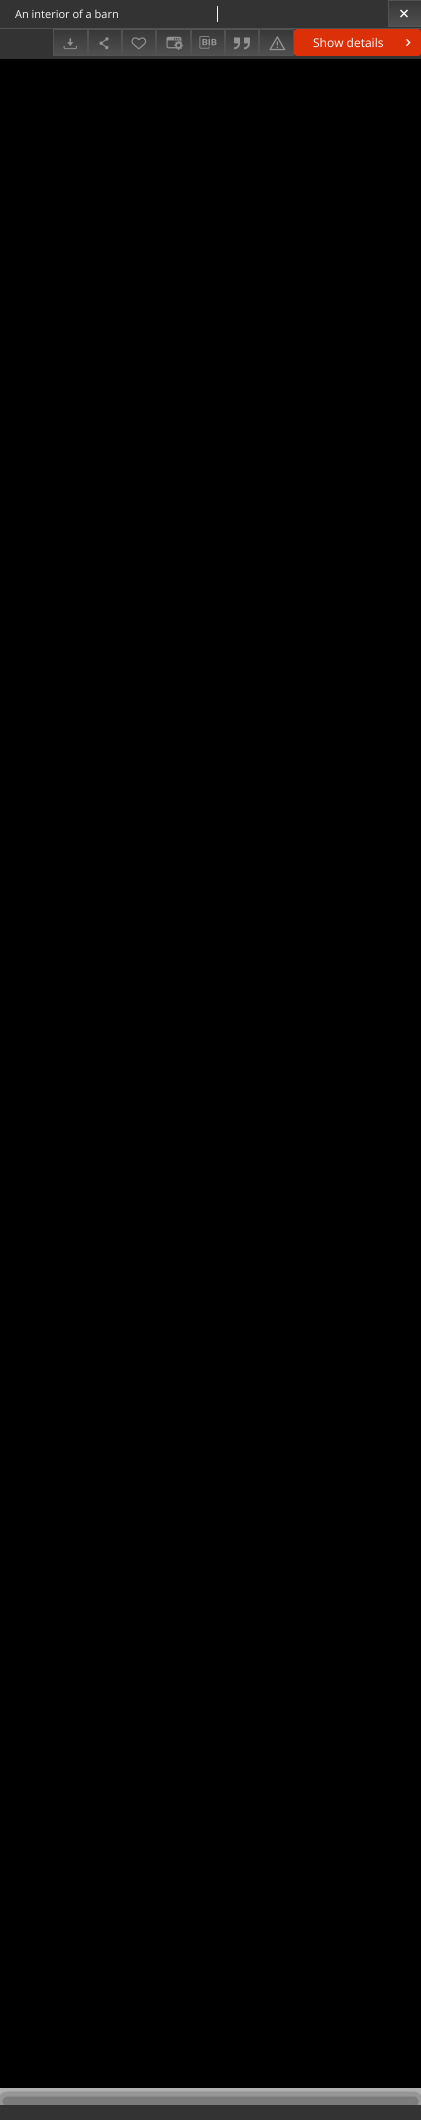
import math
import cairo

surface = cairo.ImageSurface(cairo.FORMAT_RGB24, 421, 2120)
ctx = cairo.Context(surface)
options = cairo.FontOptions()
options.set_hint_metrics(cairo.HINT_METRICS_OFF)
options.set_hint_style(cairo.HINT_STYLE_NONE)
ctx.set_font_options(options)
ctx.set_miter_limit(4)


def round_rect(x, y, w, h, r):
    ctx.new_sub_path()
    for i, (u, v) in enumerate([(x + w - r, y + h - r), (x + r, y + h - r), (x + r, y + r), (x + w - r, y + r)]):
        ctx.arc(u, v, r, i * math.pi / 2, (i + 1) * math.pi / 2)
    ctx.close_path()


def shadow(x, y, w, h, r, blur, alpha):
    ctx.push_group_with_content(cairo.CONTENT_ALPHA)
    ctx.set_operator(cairo.OPERATOR_SOURCE)
    for i in range(15, -16, -2):
        e = blur * i / 6
        if min(w, h) + 2 * e > 0:
            ctx.set_source_rgba(0, 0, 0, alpha * math.erfc((i - 1) / 8.5) / 2)
            round_rect(x - e, y - e, w + 2 * e, h + 2 * e, max(0, min(r + e + blur * .6, min(w, h) / 2 + e)))
            ctx.fill()
    ctx.mask(ctx.pop_group())


def picture(path, x, y, w, h):
    ctx.save()
    ctx.set_source_surface(cairo.ImageSurface.create_from_png(path), x, y)
    ctx.rectangle(x, y, w, h)
    ctx.fill()
    ctx.restore()


ctx.set_source_rgb(0.976, 0.976, 0.976)
ctx.paint()
ctx.set_source_rgb(0.2, 0.2, 0.2)
ctx.rectangle(0, 0, 421, 28)
ctx.fill()
ctx.set_source_rgb(0.322, 0.322, 0.322)
ctx.rectangle(0, 28, 421, 1)
ctx.fill()
ctx.set_source_rgb(0.961, 0.961, 0.961)
ctx.rectangle(217, 6, 1, 16)
ctx.fill()
ctx.select_font_face("Open Sans")
ctx.set_font_size(11)
ctx.move_to(15, 18)
ctx.show_text("An interior of a barn")
gradient = cairo.LinearGradient(405, 1, 405, 26)
gradient.add_color_stop_rgba(0, 0.22, 0.22, 0.22, 1)
gradient.add_color_stop_rgba(1, 0.31, 0.31, 0.31, 1)
ctx.set_source(gradient)
ctx.rectangle(389, 1, 32, 25)
ctx.fill()
ctx.set_source_rgb(0.322, 0.322, 0.322)
ctx.rectangle(388, 0, 33, 1)
ctx.fill()
ctx.rectangle(388, 26, 33, 1)
ctx.fill()
ctx.rectangle(388, 0, 1, 27)
ctx.fill()
ctx.set_source_rgb(1, 1, 1)
ctx.new_path()
ctx.move_to(400, 16.5)
ctx.line_to(407, 9.5)
ctx.line_to(408, 10.5)
ctx.line_to(401, 17.5)
ctx.close_path()
ctx.fill()
ctx.new_path()
ctx.move_to(401, 9.5)
ctx.line_to(408, 16.5)
ctx.line_to(407, 17.5)
ctx.line_to(400, 10.5)
ctx.close_path()
ctx.fill()
ctx.set_source_rgb(0.2, 0.2, 0.2)
ctx.rectangle(0, 29, 421, 30)
ctx.fill()
gradient = cairo.LinearGradient(71, 30, 71, 55)
gradient.add_color_stop_rgba(0, 0.22, 0.22, 0.22, 1)
gradient.add_color_stop_rgba(1, 0.31, 0.31, 0.31, 1)
ctx.set_source(gradient)
ctx.rectangle(54, 30, 33, 25)
ctx.fill()
ctx.rectangle(53.5, 29.5, 34, 26)
ctx.set_source_rgb(0.322, 0.322, 0.322)
ctx.set_line_width(1)
ctx.stroke()
picture("img1.png", 63, 38, 14, 12)
gradient = cairo.LinearGradient(105, 30, 105, 55)
gradient.add_color_stop_rgba(0, 0.22, 0.22, 0.22, 1)
gradient.add_color_stop_rgba(1, 0.31, 0.31, 0.31, 1)
ctx.set_source(gradient)
ctx.rectangle(89, 30, 32, 25)
ctx.fill()
ctx.rectangle(88.5, 29.5, 33, 26)
ctx.set_source_rgb(0.322, 0.322, 0.322)
ctx.stroke()
picture("img2.png", 99, 37, 10, 13)
gradient = cairo.LinearGradient(139, 30, 139, 55)
gradient.add_color_stop_rgba(0, 0.22, 0.22, 0.22, 1)
gradient.add_color_stop_rgba(1, 0.31, 0.31, 0.31, 1)
ctx.set_source(gradient)
ctx.rectangle(123, 30, 32, 25)
ctx.fill()
ctx.rectangle(122.5, 29.5, 33, 26)
ctx.set_source_rgb(0.322, 0.322, 0.322)
ctx.stroke()
picture("img3.png", 131, 37, 16, 13)
gradient = cairo.LinearGradient(174, 30, 174, 55)
gradient.add_color_stop_rgba(0, 0.22, 0.22, 0.22, 1)
gradient.add_color_stop_rgba(1, 0.31, 0.31, 0.31, 1)
ctx.set_source(gradient)
ctx.rectangle(157, 30, 33, 25)
ctx.fill()
ctx.rectangle(156.5, 29.5, 34, 26)
ctx.set_source_rgb(0.322, 0.322, 0.322)
ctx.stroke()
picture("img4.png", 166, 36, 17, 14)
gradient = cairo.LinearGradient(208, 30, 208, 55)
gradient.add_color_stop_rgba(0, 0.22, 0.22, 0.22, 1)
gradient.add_color_stop_rgba(1, 0.31, 0.31, 0.31, 1)
ctx.set_source(gradient)
ctx.rectangle(192, 30, 32, 25)
ctx.fill()
ctx.rectangle(191.5, 29.5, 33, 26)
ctx.set_source_rgb(0.322, 0.322, 0.322)
ctx.stroke()
picture("img5.png", 199, 36, 18, 13)
gradient = cairo.LinearGradient(242, 30, 242, 55)
gradient.add_color_stop_rgba(0, 0.22, 0.22, 0.22, 1)
gradient.add_color_stop_rgba(1, 0.31, 0.31, 0.31, 1)
ctx.set_source(gradient)
ctx.rectangle(226, 30, 32, 25)
ctx.fill()
ctx.rectangle(225.5, 29.5, 33, 26)
ctx.set_source_rgb(0.322, 0.322, 0.322)
ctx.stroke()
picture("img6.png", 234, 37, 16, 13)
gradient = cairo.LinearGradient(277, 30, 277, 55)
gradient.add_color_stop_rgba(0, 0.22, 0.22, 0.22, 1)
gradient.add_color_stop_rgba(1, 0.31, 0.31, 0.31, 1)
ctx.set_source(gradient)
ctx.rectangle(260, 30, 33, 25)
ctx.fill()
ctx.rectangle(259.5, 29.5, 34, 26)
ctx.set_source_rgb(0.322, 0.322, 0.322)
ctx.stroke()
picture("img7.png", 269, 36, 17, 15)
ctx.set_source_rgb(0.863, 0.188, 0.035)
round_rect(294.5, 29.5, 126, 26, 2.5)
ctx.fill_preserve()
ctx.stroke()
ctx.set_font_size(12)
ctx.set_source_rgb(1, 1, 1)
ctx.move_to(313, 47)
ctx.show_text("Show details")
picture("img8.png", 406, 39, 5, 7)
ctx.set_source_rgb(0.2, 0.2, 0.2)
shadow(0, 2094, 421, 15, 0, 15, 1)
ctx.set_source_rgb(0.2, 0.2, 0.2)
ctx.rectangle(0, 2105, 421, 15)
ctx.fill()
ctx.set_source_rgb(0, 0, 0)
ctx.rectangle(0, 59, 421, 2029)
ctx.fill()
surface.write_to_png("page.png")
